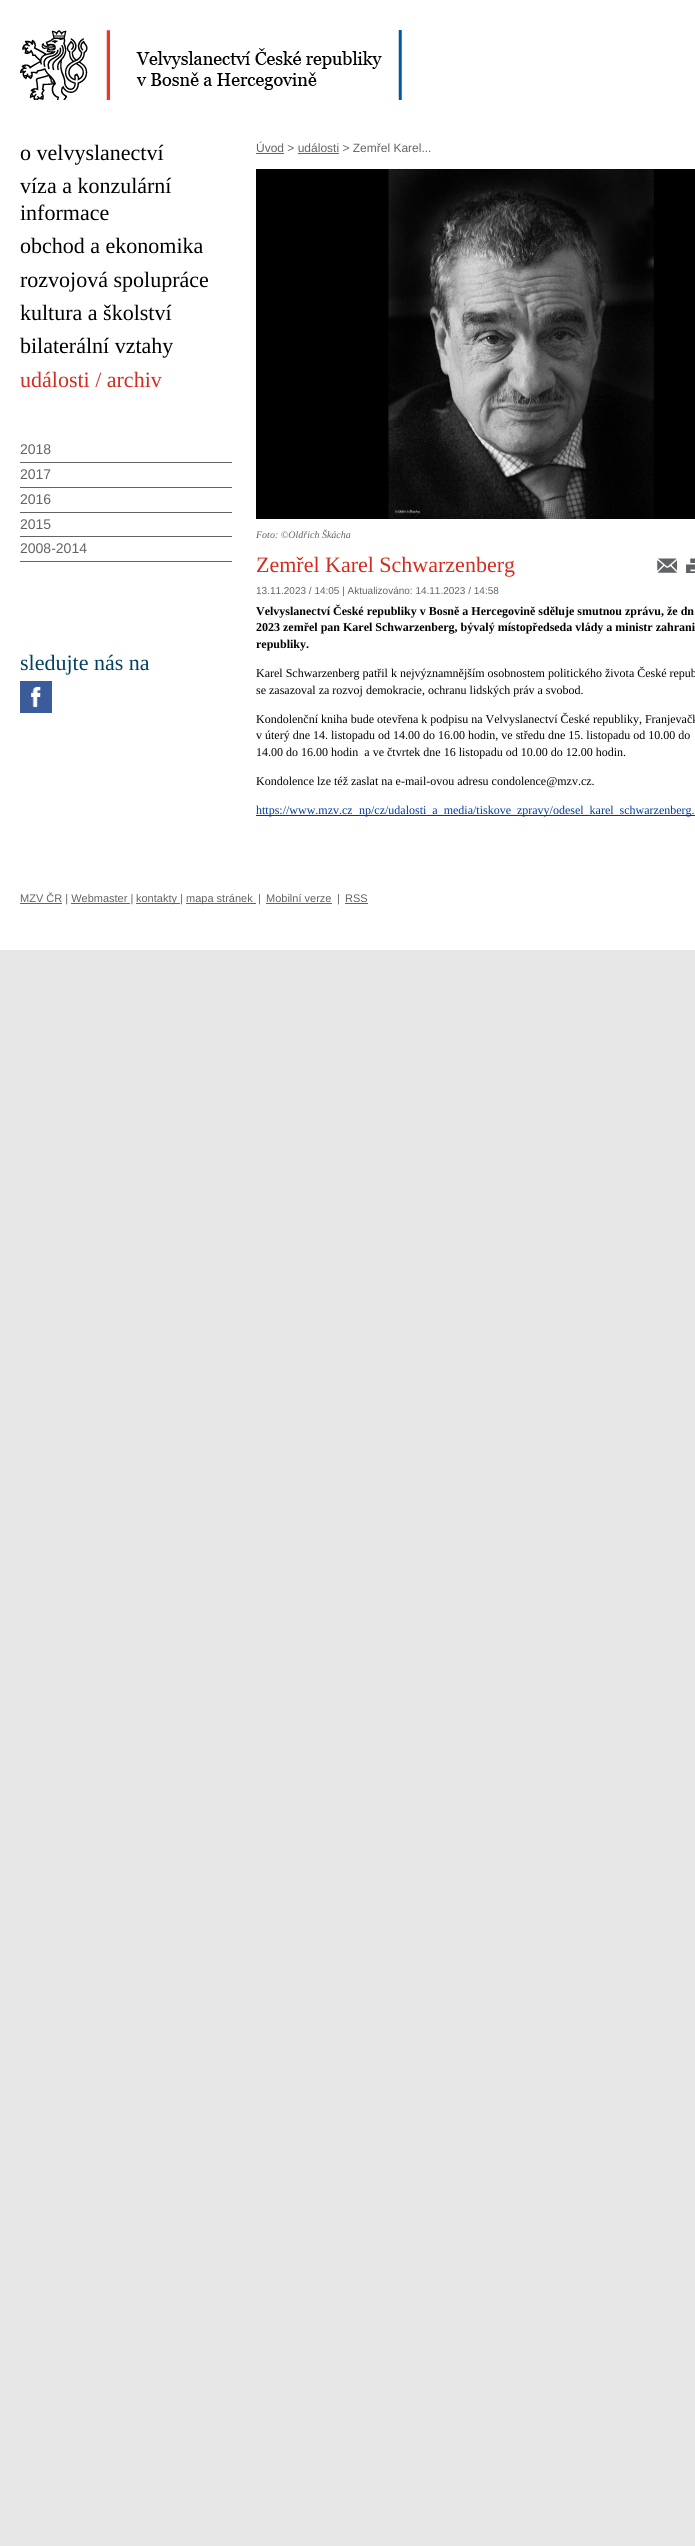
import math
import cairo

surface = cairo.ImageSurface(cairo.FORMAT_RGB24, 695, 2546)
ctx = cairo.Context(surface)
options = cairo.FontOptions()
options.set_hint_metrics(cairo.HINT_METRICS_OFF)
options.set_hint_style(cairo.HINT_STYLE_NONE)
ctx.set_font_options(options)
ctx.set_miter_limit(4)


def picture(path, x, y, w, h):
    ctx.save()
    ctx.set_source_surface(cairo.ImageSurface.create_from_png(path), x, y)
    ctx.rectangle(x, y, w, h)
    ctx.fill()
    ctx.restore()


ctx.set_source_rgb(0.906, 0.906, 0.906)
ctx.paint()
ctx.set_source_rgb(1, 1, 1)
ctx.rectangle(0, 0, 695, 950)
ctx.fill()
picture("img1.png", 20, 30, 382, 70)
ctx.select_font_face("Liberation Serif")
ctx.set_font_size(22)
ctx.set_source_rgb(0, 0, 0)
ctx.move_to(20, 160)
ctx.show_text("o velvyslanectví")
ctx.move_to(20, 193)
ctx.show_text("víza a konzulární")
ctx.move_to(20, 220)
ctx.show_text("informace")
ctx.move_to(20, 253)
ctx.show_text("obchod a ekonomika")
ctx.move_to(20, 287)
ctx.show_text("rozvojová spolupráce")
ctx.move_to(20, 320)
ctx.show_text("kultura a školství")
ctx.move_to(20, 353)
ctx.show_text("bilaterální vztahy")
ctx.set_source_rgb(0.835, 0.169, 0.118)
ctx.move_to(20, 387)
ctx.show_text("události / archiv")
ctx.select_font_face("Liberation Sans")
ctx.set_font_size(12)
ctx.set_source_rgb(0.38, 0.388, 0.396)
ctx.move_to(256, 152)
ctx.show_text("Úvod > události > Zemřel Karel...")
ctx.rectangle(256, 153, 28, 1)
ctx.fill()
ctx.rectangle(298, 153, 41, 1)
ctx.fill()
picture("img2.png", 256, 169, 439, 350)
ctx.select_font_face("Liberation Serif", cairo.FONT_SLANT_ITALIC)
ctx.set_font_size(10)
ctx.move_to(256, 538)
ctx.show_text("Foto: ©Oldřich Škácha")
ctx.select_font_face("Liberation Serif")
ctx.set_font_size(22)
ctx.set_source_rgb(0.835, 0.169, 0.118)
ctx.move_to(256, 572)
ctx.show_text("Zemřel Karel Schwarzenberg")
ctx.select_font_face("Liberation Sans")
ctx.set_font_size(10)
ctx.set_source_rgb(0.38, 0.388, 0.396)
ctx.move_to(256, 594)
ctx.show_text("13.11.2023 / 14:05 | Aktualizováno: 14.11.2023 / 14:58")
ctx.select_font_face("Liberation Serif", cairo.FONT_SLANT_NORMAL, cairo.FONT_WEIGHT_BOLD)
ctx.set_font_size(12)
ctx.set_source_rgb(0, 0, 0)
ctx.move_to(256, 615)
ctx.show_text("Velvyslanectví České republiky v Bosně a Hercegovině sděluje smutnou zprávu, že dn")
ctx.move_to(256, 631)
ctx.show_text("2023 zemřel pan Karel Schwarzenberg, bývalý místopředseda vlády a ministr zahrani")
ctx.move_to(256, 648)
ctx.show_text("republiky.")
ctx.select_font_face("Liberation Serif")
ctx.move_to(256, 677)
ctx.show_text("Karel Schwarzenberg patřil k nejvýznamnějším osobnostem politického života České repub")
ctx.move_to(256, 694)
ctx.show_text("se zasazoval za rozvoj demokracie, ochranu lidských práv a svobod.")
ctx.move_to(256, 723)
ctx.show_text("Kondolenční kniha bude otevřena k podpisu na Velvyslanectví České republiky, Franjevačk")
ctx.move_to(256, 739)
ctx.show_text("v úterý dne 14. listopadu od 14.00 do 16.00 hodin, ve středu dne 15. listopadu od 10.00 do")
ctx.move_to(256, 756)
ctx.show_text("14.00 do 16.00 hodin  a ve čtvrtek dne 16 listopadu od 10.00 do 12.00 hodin.")
ctx.move_to(256, 785)
ctx.show_text("Kondolence lze též zaslat na e-mail-ovou adresu condolence@mzv.cz.")
ctx.set_source_rgb(0, 0.224, 0.651)
ctx.rectangle(256, 815, 439, 1)
ctx.fill()
ctx.move_to(256, 814)
ctx.show_text("https://www.mzv.cz")
ctx.move_to(359, 814)
ctx.show_text("np/cz/udalosti_a_media/tiskove_zpravy/odesel_karel_schwarzenberg.")
picture("img3.png", 657, 558, 20, 15)
picture("img4.png", 686, 558, 9, 15)
ctx.set_source_rgb(0.38, 0.388, 0.396)
ctx.rectangle(20, 462, 212, 1)
ctx.fill()
ctx.select_font_face("Liberation Sans")
ctx.set_font_size(14)
ctx.move_to(20, 454)
ctx.show_text("2018")
ctx.rectangle(20, 487, 212, 1)
ctx.fill()
ctx.move_to(20, 479)
ctx.show_text("2017")
ctx.rectangle(20, 512, 212, 1)
ctx.fill()
ctx.move_to(20, 504)
ctx.show_text("2016")
ctx.rectangle(20, 536, 212, 1)
ctx.fill()
ctx.move_to(20, 529)
ctx.show_text("2015")
ctx.rectangle(20, 561, 212, 1)
ctx.fill()
ctx.move_to(20, 553)
ctx.show_text("2008-2014")
ctx.select_font_face("Liberation Serif")
ctx.set_font_size(22)
ctx.set_source_rgb(0, 0.255, 0.396)
ctx.move_to(20, 670)
ctx.show_text("sledujte nás na")
picture("img5.png", 20, 681, 32, 32)
ctx.set_source_rgb(0.38, 0.388, 0.396)
ctx.rectangle(20, 903, 42, 1)
ctx.fill()
ctx.select_font_face("Liberation Sans")
ctx.set_font_size(11)
ctx.move_to(20, 902)
ctx.show_text("MZV ČR | Webmaster |")
ctx.rectangle(136, 903, 41, 1)
ctx.fill()
ctx.move_to(136, 902)
ctx.show_text("kontakty |")
ctx.rectangle(177, 903, 3, 1)
ctx.fill()
ctx.rectangle(186, 903, 70, 1)
ctx.fill()
ctx.move_to(186, 902)
ctx.show_text("mapa stránek")
ctx.move_to(258, 902)
ctx.show_text("|")
ctx.move_to(266, 902)
ctx.show_text("Mobilní verze")
ctx.rectangle(266, 903, 66, 1)
ctx.fill()
ctx.move_to(337, 902)
ctx.show_text("|")
ctx.move_to(345, 902)
ctx.show_text("RSS")
ctx.rectangle(345, 903, 23, 1)
ctx.fill()
ctx.rectangle(71, 903, 59, 1)
ctx.fill()
surface.write_to_png("page.png")
